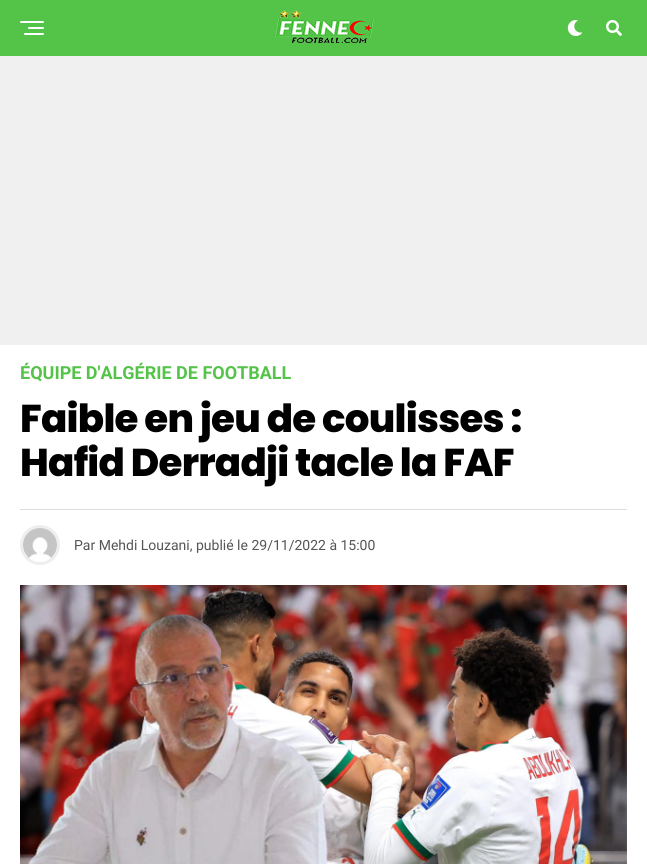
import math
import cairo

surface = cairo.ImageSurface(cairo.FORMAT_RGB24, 647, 864)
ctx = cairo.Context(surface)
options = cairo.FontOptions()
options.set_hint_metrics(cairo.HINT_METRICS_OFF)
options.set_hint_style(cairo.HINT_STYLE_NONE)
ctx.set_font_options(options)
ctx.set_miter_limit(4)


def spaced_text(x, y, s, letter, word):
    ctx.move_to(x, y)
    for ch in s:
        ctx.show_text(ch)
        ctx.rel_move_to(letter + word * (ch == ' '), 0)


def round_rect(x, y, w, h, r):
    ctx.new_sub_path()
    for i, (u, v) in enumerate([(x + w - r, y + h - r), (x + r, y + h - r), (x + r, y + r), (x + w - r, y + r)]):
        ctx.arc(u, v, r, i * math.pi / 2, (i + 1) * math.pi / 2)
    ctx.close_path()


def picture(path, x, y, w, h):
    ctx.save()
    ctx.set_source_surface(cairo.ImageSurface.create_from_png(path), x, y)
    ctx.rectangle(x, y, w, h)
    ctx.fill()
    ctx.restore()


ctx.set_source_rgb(0.941, 0.941, 0.941)
ctx.paint()
ctx.set_source_rgb(0.329, 0.769, 0.282)
ctx.rectangle(0, 0, 647, 56)
ctx.fill()
ctx.set_source_rgb(1, 1, 1)
round_rect(20, 21, 24, 2, 1)
ctx.fill()
round_rect(28, 27, 16, 2, 1)
ctx.fill()
round_rect(24, 33, 20, 2, 1)
ctx.fill()
picture("img1.png", 275, 10, 99, 33)
picture("img2.png", 567, 20, 16, 16)
picture("img3.png", 606, 20, 16, 16)
ctx.rectangle(0, 345, 647, 519)
ctx.fill()
ctx.select_font_face("Roboto", cairo.FONT_SLANT_NORMAL, cairo.FONT_WEIGHT_BOLD)
ctx.set_font_size(18)
ctx.set_source_rgb(0.329, 0.769, 0.282)
ctx.move_to(20, 379)
ctx.show_text("ÉQUIPE D'ALGÉRIE DE FOOTBALL")
ctx.select_font_face("Poppins ExtraBold")
ctx.set_font_size(38.75)
ctx.set_source_rgb(0, 0, 0)
spaced_text(20, 432, "Faible en jeu de coulisses :", -0.75, 0)
spaced_text(20, 476, "Hafid Derradji tacle la FAF", -0.75, 0)
ctx.set_source_rgb(0.867, 0.867, 0.867)
ctx.rectangle(20, 509, 607, 1)
ctx.fill()
ctx.arc(40, 545, 18.5, 0, 2 * math.pi)
ctx.set_source_rgb(0.933, 0.933, 0.933)
ctx.set_line_width(3)
ctx.stroke()
picture("img4.png", 23, 528, 34, 34)
ctx.select_font_face("Roboto")
ctx.set_font_size(14)
ctx.set_source_rgb(0.333, 0.333, 0.333)
ctx.move_to(74, 550)
ctx.show_text("Par Mehdi Louzani, publié le 29/11/2022 à 15:00")
picture("img5.png", 20, 585, 607, 279)
surface.write_to_png("page.png")
